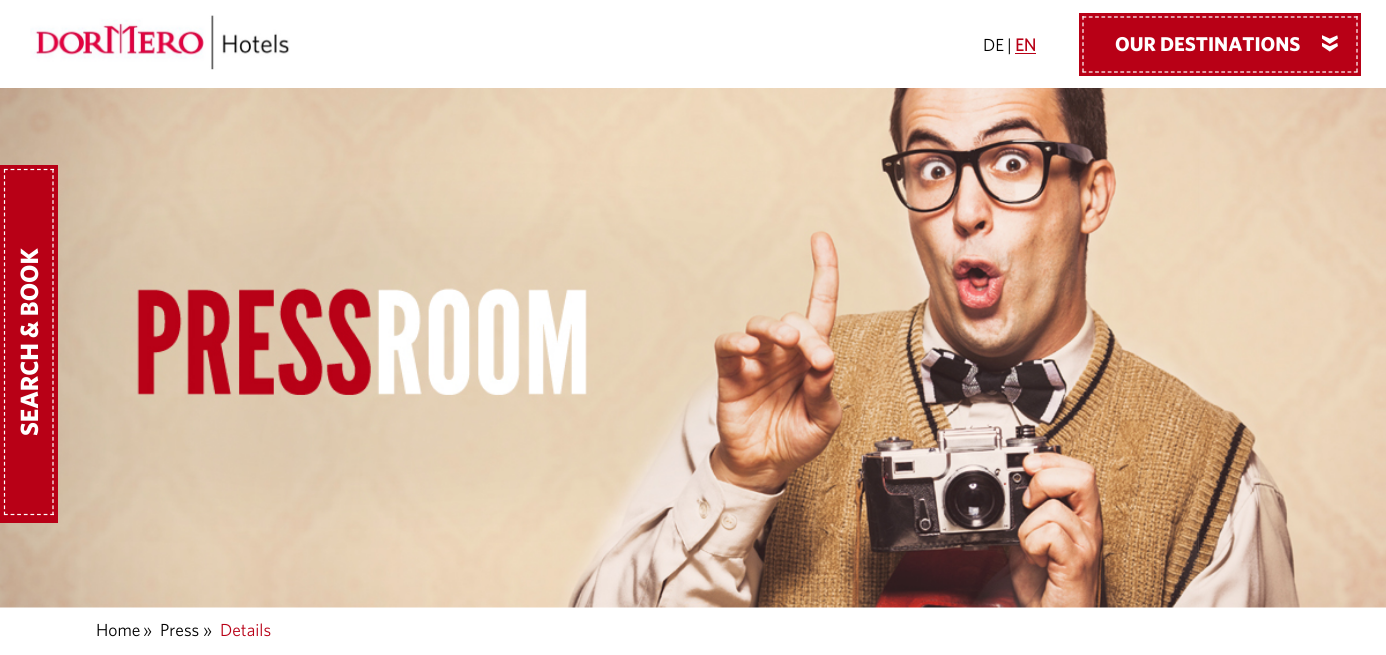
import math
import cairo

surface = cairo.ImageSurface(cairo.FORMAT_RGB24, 1386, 655)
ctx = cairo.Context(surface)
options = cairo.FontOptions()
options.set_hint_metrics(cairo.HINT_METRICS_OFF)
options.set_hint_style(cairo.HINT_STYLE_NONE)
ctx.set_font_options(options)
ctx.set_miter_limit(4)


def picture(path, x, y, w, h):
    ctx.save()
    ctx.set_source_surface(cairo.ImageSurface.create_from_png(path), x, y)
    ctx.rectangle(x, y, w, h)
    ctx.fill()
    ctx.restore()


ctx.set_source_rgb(1, 1, 1)
ctx.paint()
picture("img1.png", 30, 15, 260, 55)
ctx.select_font_face("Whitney")
ctx.set_font_size(17.5)
ctx.set_source_rgb(0, 0, 0)
ctx.move_to(983, 51)
ctx.show_text("DE")
ctx.move_to(1007, 51)
ctx.show_text("|")
ctx.select_font_face("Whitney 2", cairo.FONT_SLANT_NORMAL, cairo.FONT_WEIGHT_BOLD)
ctx.set_source_rgb(0.722, 0, 0.086)
ctx.move_to(1015, 51)
ctx.show_text("EN")
ctx.rectangle(1015, 53, 21, 1)
ctx.fill()
ctx.rectangle(1079, 13, 282, 63)
ctx.fill()
ctx.new_path()
ctx.move_to(1082.5, 17)
ctx.line_to(1357.5, 17)
ctx.set_source_rgb(1, 1, 1)
ctx.set_line_width(1.2)
ctx.set_dash([3.75, 2.56])
ctx.stroke()
ctx.new_path()
ctx.move_to(1357, 16)
ctx.line_to(1357, 72.5)
ctx.set_dash([3.75, 2.81])
ctx.stroke()
ctx.new_path()
ctx.move_to(1082.5, 72)
ctx.line_to(1357.5, 72)
ctx.set_dash([3.75, 2.56])
ctx.stroke()
ctx.new_path()
ctx.move_to(1083, 16)
ctx.line_to(1083, 72.5)
ctx.set_dash([3.75, 2.81])
ctx.stroke()
ctx.select_font_face("Whitney", cairo.FONT_SLANT_NORMAL, cairo.FONT_WEIGHT_BOLD)
ctx.set_font_size(20)
ctx.move_to(1115, 51)
ctx.show_text("OUR DESTINATIONS")
ctx.set_font_size(32)
ctx.save()
ctx.translate(1322, 34)
ctx.rotate(90 * math.pi / 180)
ctx.move_to(0, 0)
ctx.show_text("»")
ctx.restore()
picture("img2.png", 0, 88, 1386, 520)
ctx.set_source_rgb(0.722, 0, 0.086)
ctx.rectangle(0, 165, 58, 358)
ctx.fill()
ctx.new_path()
ctx.move_to(4, 169.5)
ctx.line_to(54, 169.5)
ctx.set_source_rgb(1, 1, 1)
ctx.set_dash([3.75, 2.86])
ctx.stroke()
ctx.new_path()
ctx.move_to(53, 169)
ctx.line_to(53, 515)
ctx.set_dash([3.75, 2.48])
ctx.stroke()
ctx.new_path()
ctx.move_to(4, 514.5)
ctx.line_to(54, 514.5)
ctx.set_dash([3.75, 2.86])
ctx.stroke()
ctx.new_path()
ctx.move_to(4.5, 169)
ctx.line_to(4.5, 515)
ctx.set_dash([3.75, 2.48])
ctx.stroke()
ctx.set_font_size(25)
ctx.save()
ctx.translate(38, 436)
ctx.rotate(-90 * math.pi / 180)
ctx.move_to(0, 0)
ctx.show_text("SEARCH & BOOK")
ctx.restore()
ctx.select_font_face("Whitney")
ctx.set_font_size(17.5)
ctx.set_source_rgb(0, 0, 0)
ctx.move_to(96, 636)
ctx.show_text("Home")
ctx.move_to(143, 636)
ctx.show_text("»")
ctx.move_to(160, 636)
ctx.show_text("Press")
ctx.move_to(203, 636)
ctx.show_text("»")
ctx.set_source_rgb(0.722, 0, 0.086)
ctx.move_to(220, 636)
ctx.show_text("Details")
surface.write_to_png("page.png")
